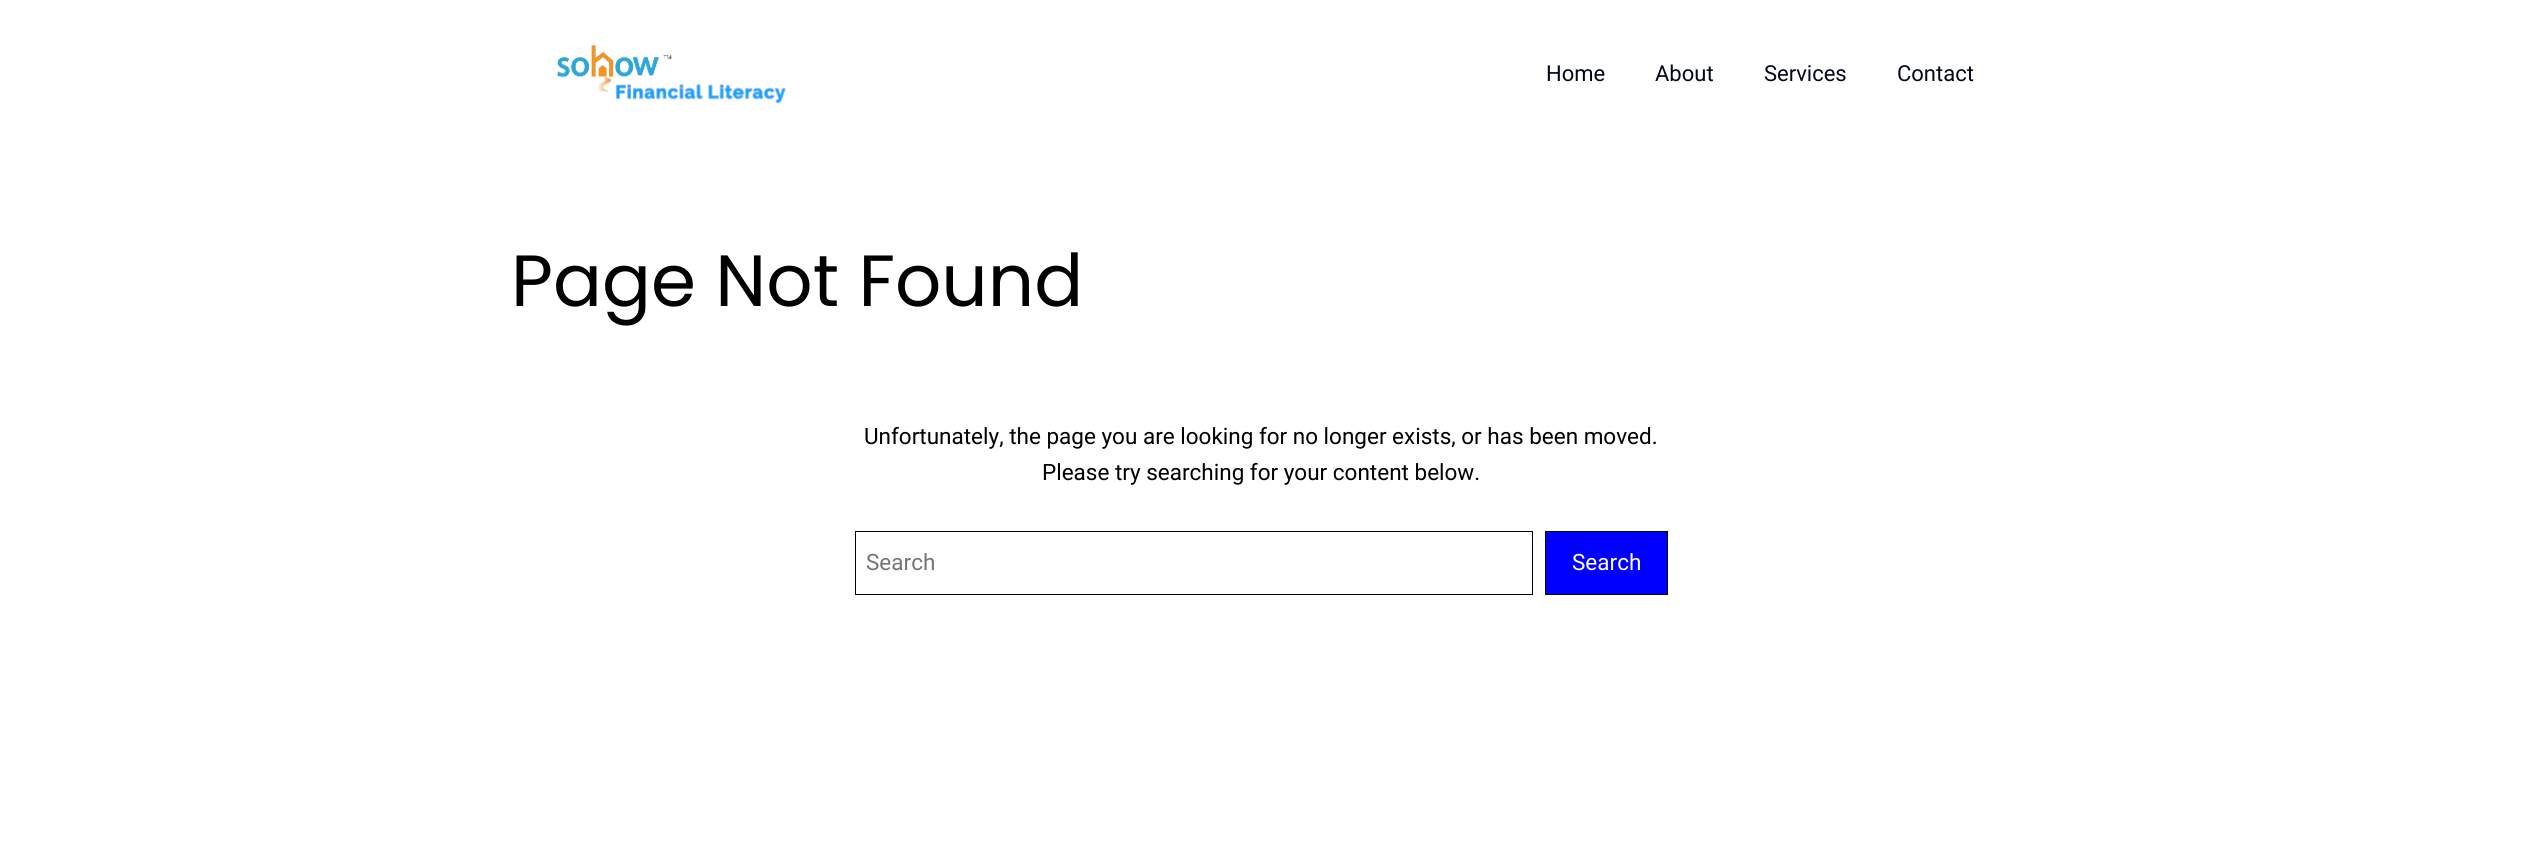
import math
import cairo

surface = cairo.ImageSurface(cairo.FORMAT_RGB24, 2522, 842)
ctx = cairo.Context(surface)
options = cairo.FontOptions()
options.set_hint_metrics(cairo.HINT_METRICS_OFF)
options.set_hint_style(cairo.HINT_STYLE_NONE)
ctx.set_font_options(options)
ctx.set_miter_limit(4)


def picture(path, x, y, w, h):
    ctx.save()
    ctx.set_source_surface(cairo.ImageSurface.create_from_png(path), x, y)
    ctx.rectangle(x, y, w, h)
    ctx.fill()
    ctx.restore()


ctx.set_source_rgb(1, 1, 1)
ctx.paint()
picture("img1.png", 556, 45, 230, 59)
ctx.select_font_face("Roboto")
ctx.set_font_size(22)
ctx.set_source_rgb(0.012, 0.031, 0.118)
ctx.move_to(1546, 81)
ctx.show_text("Home")
ctx.move_to(1655, 81)
ctx.show_text("About")
ctx.move_to(1764, 81)
ctx.show_text("Services")
ctx.move_to(1897, 81)
ctx.show_text("Contact")
ctx.select_font_face("Poppins")
ctx.set_font_size(72.5)
ctx.set_source_rgb(0, 0, 0)
ctx.move_to(511, 306)
ctx.show_text("Page Not Found")
ctx.select_font_face("Roboto")
ctx.set_font_size(22.5)
ctx.move_to(864, 444)
ctx.show_text("Unfortunately, the page you are looking for no longer exists, or has been moved.")
ctx.move_to(1042, 480)
ctx.show_text("Please try searching for your content below.")
ctx.rectangle(855.5, 531.5, 677, 63)
ctx.set_source_rgb(0, 0, 0.004)
ctx.set_line_width(1)
ctx.stroke()
ctx.set_source_rgb(0.459, 0.459, 0.459)
ctx.move_to(866, 570)
ctx.show_text("Search")
ctx.set_source_rgb(0, 0, 1)
ctx.rectangle(1545.5, 531.5, 122, 63)
ctx.fill_preserve()
ctx.set_source_rgb(0, 0, 0.004)
ctx.stroke()
ctx.set_source_rgb(1, 1, 1)
ctx.move_to(1572, 570)
ctx.show_text("Search")
surface.write_to_png("page.png")
